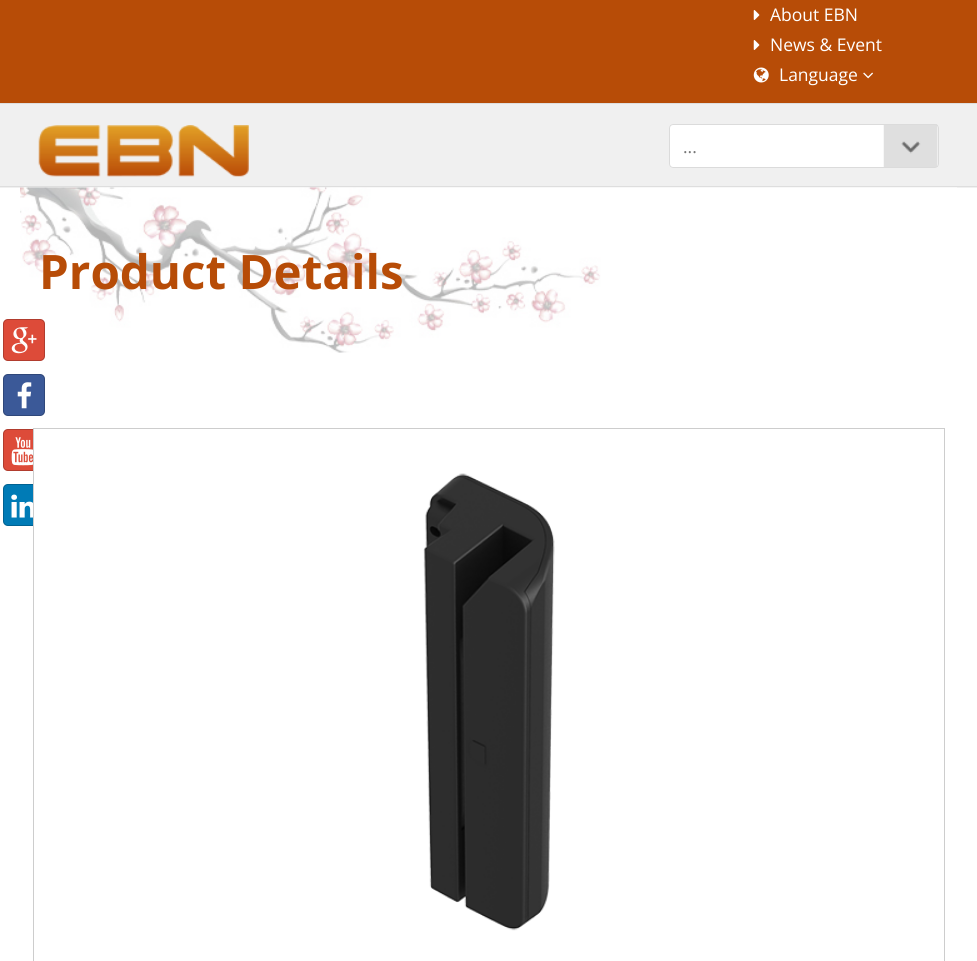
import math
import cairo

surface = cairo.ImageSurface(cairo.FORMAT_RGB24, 977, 961)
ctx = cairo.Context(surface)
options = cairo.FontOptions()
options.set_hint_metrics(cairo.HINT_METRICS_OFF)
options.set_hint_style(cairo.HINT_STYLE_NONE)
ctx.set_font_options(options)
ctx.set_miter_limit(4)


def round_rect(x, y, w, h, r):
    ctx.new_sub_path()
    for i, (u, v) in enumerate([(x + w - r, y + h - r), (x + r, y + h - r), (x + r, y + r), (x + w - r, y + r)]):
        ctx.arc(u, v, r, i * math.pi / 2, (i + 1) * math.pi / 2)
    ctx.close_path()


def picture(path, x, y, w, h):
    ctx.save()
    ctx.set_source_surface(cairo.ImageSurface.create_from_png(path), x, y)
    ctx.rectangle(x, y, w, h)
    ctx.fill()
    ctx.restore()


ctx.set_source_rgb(1, 1, 1)
ctx.paint()
ctx.set_source_rgb(0.718, 0.298, 0.031)
ctx.rectangle(0, 0, 977, 103)
ctx.fill()
picture("img1.png", 753, 10, 7, 10)
ctx.select_font_face("Open Sans")
ctx.set_font_size(17.5)
ctx.set_source_rgb(1, 1, 1)
ctx.move_to(770, 21)
ctx.show_text("About EBN")
picture("img1.png", 753, 40, 7, 10)
ctx.move_to(770, 51)
ctx.show_text("News & Event")
picture("img2.png", 753, 67, 16, 16)
ctx.move_to(779, 81)
ctx.show_text("Language")
picture("img3.png", 863, 72, 10, 7)
ctx.set_source_rgb(0.941, 0.941, 0.941)
ctx.rectangle(0, 104, 977, 84)
ctx.fill()
ctx.set_source_rgb(0.871, 0.871, 0.871)
ctx.rectangle(0, 103, 977, 1)
ctx.fill()
ctx.rectangle(0, 186, 977, 1)
ctx.fill()
picture("img4.png", 38, 125, 211, 52)
ctx.set_source_rgb(1, 1, 1)
round_rect(669, 124, 270, 44, 4)
ctx.fill()
picture("img5.png", 883, 124, 55, 44)
round_rect(669.5, 124.5, 269, 43, 3.5)
ctx.set_source_rgb(0.859, 0.859, 0.859)
ctx.set_line_width(1)
ctx.stroke()
ctx.set_source_rgb(0.467, 0.467, 0.467)
ctx.move_to(683, 153)
ctx.show_text("...")
picture("img10.png", 20, 187, 937, 166)
ctx.set_source_rgb(0.867, 0.294, 0.224)
round_rect(3, 319, 42, 42, 5)
ctx.fill()
round_rect(3.5, 319.5, 41, 41, 4.5)
ctx.set_source_rgba(0, 0, 0, 0.2)
ctx.stroke()
picture("img6.png", 11, 327, 26, 27)
ctx.set_source_rgb(0.231, 0.349, 0.596)
round_rect(3, 374, 42, 42, 5)
ctx.fill()
round_rect(3.5, 374.5, 41, 41, 4.5)
ctx.set_source_rgba(0, 0, 0, 0.2)
ctx.stroke()
picture("img7.png", 17, 382, 15, 27)
ctx.set_source_rgb(0.867, 0.294, 0.224)
round_rect(3, 429, 42, 42, 5)
ctx.fill()
round_rect(3.5, 429.5, 41, 41, 4.5)
ctx.set_source_rgba(0, 0, 0, 0.2)
ctx.stroke()
picture("img8.png", 11, 437, 22, 29)
ctx.set_source_rgb(0, 0.482, 0.714)
round_rect(3, 484, 42, 42, 5)
ctx.fill()
round_rect(3.5, 484.5, 41, 41, 4.5)
ctx.set_source_rgba(0, 0, 0, 0.2)
ctx.stroke()
picture("img9.png", 11, 494, 22, 24)
ctx.select_font_face("Open Sans", cairo.FONT_SLANT_NORMAL, cairo.FONT_WEIGHT_BOLD)
ctx.set_font_size(47.5)
ctx.set_source_rgb(0.718, 0.298, 0.031)
ctx.move_to(39, 289)
ctx.show_text("Product Details")
ctx.set_source_rgb(1, 1, 1)
ctx.rectangle(34, 429, 11, 97)
ctx.fill()
ctx.rectangle(33.5, 428.5, 911, 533)
ctx.set_source_rgb(0.804, 0.804, 0.804)
ctx.stroke()
picture("img11.png", 423, 473, 132, 458)
surface.write_to_png("page.png")
